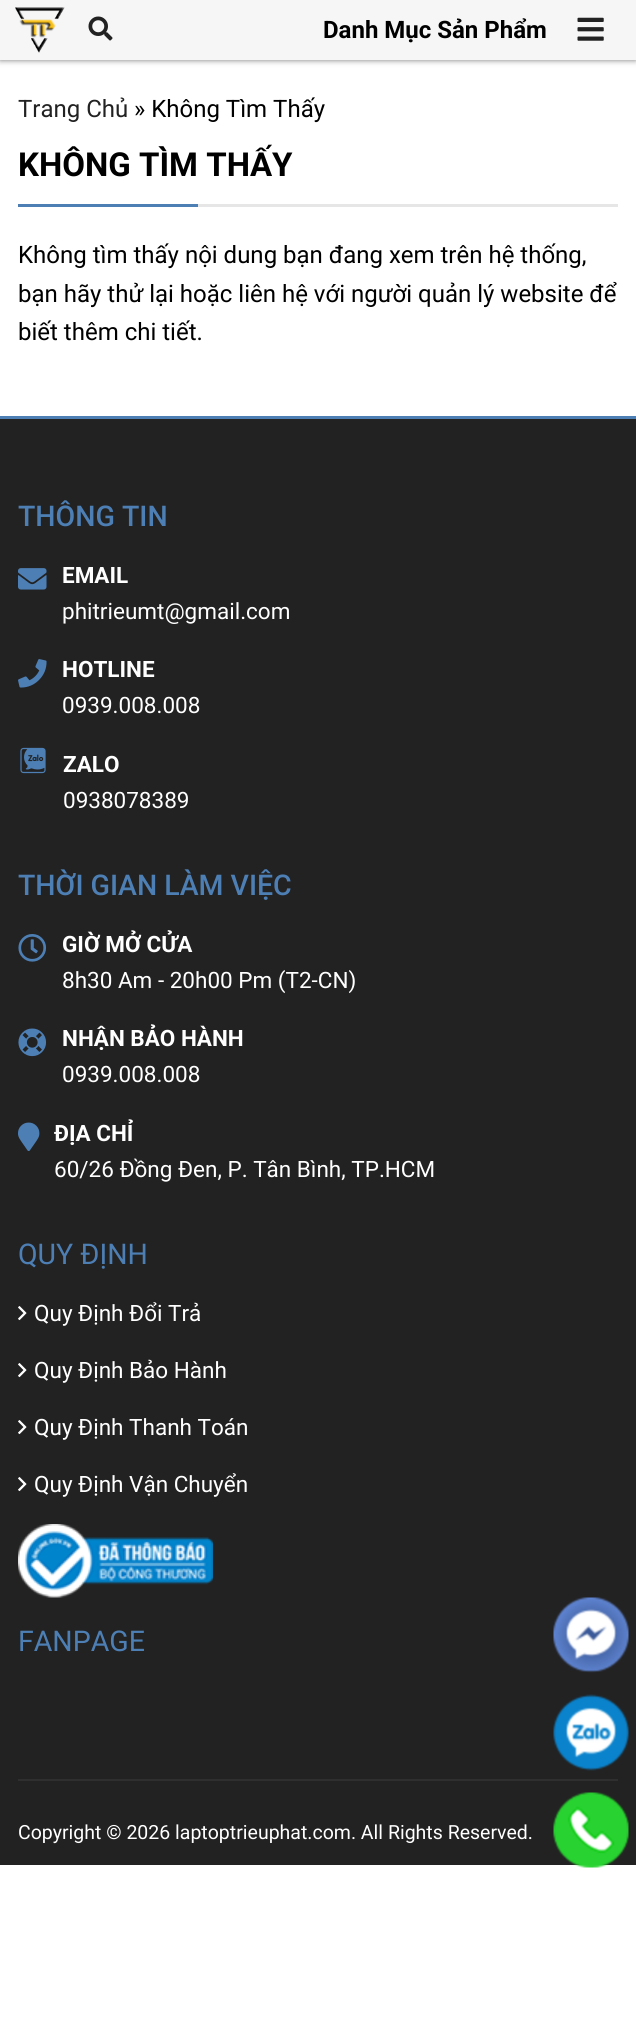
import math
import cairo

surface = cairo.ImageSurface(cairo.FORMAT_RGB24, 636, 2039)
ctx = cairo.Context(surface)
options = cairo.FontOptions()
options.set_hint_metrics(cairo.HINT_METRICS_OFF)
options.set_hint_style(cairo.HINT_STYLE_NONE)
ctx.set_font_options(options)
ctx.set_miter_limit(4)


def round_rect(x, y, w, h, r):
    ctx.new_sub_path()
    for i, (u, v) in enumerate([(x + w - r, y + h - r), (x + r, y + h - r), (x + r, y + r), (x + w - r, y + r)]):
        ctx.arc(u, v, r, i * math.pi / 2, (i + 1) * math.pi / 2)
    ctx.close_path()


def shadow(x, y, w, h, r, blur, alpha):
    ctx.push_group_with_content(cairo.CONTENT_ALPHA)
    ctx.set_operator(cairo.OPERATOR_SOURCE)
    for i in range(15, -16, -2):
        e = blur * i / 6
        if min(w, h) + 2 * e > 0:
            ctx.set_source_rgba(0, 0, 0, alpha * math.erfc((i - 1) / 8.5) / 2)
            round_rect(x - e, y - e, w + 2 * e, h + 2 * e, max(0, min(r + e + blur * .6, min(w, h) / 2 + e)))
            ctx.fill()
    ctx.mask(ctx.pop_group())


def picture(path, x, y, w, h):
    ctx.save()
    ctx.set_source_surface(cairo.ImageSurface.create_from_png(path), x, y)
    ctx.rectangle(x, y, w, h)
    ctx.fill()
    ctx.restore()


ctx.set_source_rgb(1, 1, 1)
ctx.paint()
ctx.set_source_rgb(0.467, 0.467, 0.467)
shadow(0, 0, 636, 60, 0, 3, 1)
ctx.set_source_rgb(0.961, 0.961, 0.961)
ctx.rectangle(0, 0, 636, 60)
ctx.fill()
picture("img1.png", 15, 7, 50, 46)
picture("img2.png", 88, 16, 25, 25)
ctx.select_font_face("Roboto", cairo.FONT_SLANT_NORMAL, cairo.FONT_WEIGHT_BOLD)
ctx.set_font_size(24)
ctx.set_source_rgb(0, 0, 0)
ctx.move_to(323, 38)
ctx.show_text("Danh Mục Sản Phẩm")
picture("img3.png", 577, 17, 27, 24)
ctx.select_font_face("Roboto")
ctx.set_source_rgb(0.133, 0.133, 0.133)
ctx.move_to(18, 117)
ctx.show_text("Trang Chủ")
ctx.set_source_rgb(0, 0, 0)
ctx.move_to(134, 117)
ctx.show_text("» Không Tìm Thấy")
ctx.set_source_rgb(0.902, 0.902, 0.902)
ctx.rectangle(198, 204, 420, 3)
ctx.fill()
ctx.select_font_face("Roboto", cairo.FONT_SLANT_NORMAL, cairo.FONT_WEIGHT_BOLD)
ctx.set_font_size(33)
ctx.set_source_rgb(0, 0, 0)
ctx.move_to(18, 176)
ctx.show_text("KHÔNG TÌM THẤY")
ctx.set_source_rgb(0.302, 0.498, 0.71)
ctx.rectangle(18, 204, 180, 3)
ctx.fill()
ctx.select_font_face("Roboto")
ctx.set_font_size(24)
ctx.set_source_rgb(0, 0, 0)
ctx.move_to(18, 263)
ctx.show_text("Không tìm thấy nội dung bạn đang xem trên hệ thống,")
ctx.move_to(18, 302)
ctx.show_text("bạn hãy thử lại hoặc liên hệ với người quản lý website để")
ctx.move_to(18, 340)
ctx.show_text("biết thêm chi tiết.")
ctx.set_source_rgb(0.133, 0.133, 0.133)
ctx.rectangle(0, 419, 636, 1446)
ctx.fill()
ctx.set_source_rgb(0.302, 0.498, 0.71)
ctx.rectangle(0, 416, 636, 3)
ctx.fill()
ctx.select_font_face("Roboto Medium")
ctx.set_font_size(28.5)
ctx.move_to(18, 526)
ctx.show_text("THÔNG TIN")
picture("img4.png", 18, 568, 29, 22)
ctx.select_font_face("Roboto", cairo.FONT_SLANT_NORMAL, cairo.FONT_WEIGHT_BOLD)
ctx.set_font_size(22.5)
ctx.set_source_rgb(1, 1, 1)
ctx.move_to(62, 583)
ctx.show_text("EMAIL")
ctx.select_font_face("Roboto")
ctx.move_to(62, 619)
ctx.show_text("phitrieumt@gmail.com")
picture("img5.png", 18, 659, 29, 29)
ctx.select_font_face("Roboto", cairo.FONT_SLANT_NORMAL, cairo.FONT_WEIGHT_BOLD)
ctx.move_to(62, 677)
ctx.show_text("HOTLINE")
ctx.select_font_face("Roboto")
ctx.move_to(62, 713)
ctx.show_text("0939.008.008")
picture("img6.png", 20, 747, 26, 27)
ctx.select_font_face("Roboto", cairo.FONT_SLANT_NORMAL, cairo.FONT_WEIGHT_BOLD)
ctx.move_to(63, 772)
ctx.show_text("ZALO")
ctx.select_font_face("Roboto")
ctx.move_to(63, 808)
ctx.show_text("0938078389")
ctx.select_font_face("Roboto Medium")
ctx.set_font_size(28.5)
ctx.set_source_rgb(0.302, 0.498, 0.71)
ctx.move_to(18, 895)
ctx.show_text("THỜI GIAN LÀM VIỆC")
picture("img7.png", 18, 934, 28, 28)
ctx.select_font_face("Roboto", cairo.FONT_SLANT_NORMAL, cairo.FONT_WEIGHT_BOLD)
ctx.set_font_size(22.5)
ctx.set_source_rgb(1, 1, 1)
ctx.move_to(62, 952)
ctx.show_text("GIỜ MỞ CỬA")
ctx.select_font_face("Roboto")
ctx.move_to(62, 988)
ctx.show_text("8h30 Am - 20h00 Pm (T2-CN)")
picture("img8.png", 18, 1028, 29, 29)
ctx.select_font_face("Roboto", cairo.FONT_SLANT_NORMAL, cairo.FONT_WEIGHT_BOLD)
ctx.move_to(62, 1046)
ctx.show_text("NHẬN BẢO HÀNH")
ctx.select_font_face("Roboto")
ctx.move_to(62, 1082)
ctx.show_text("0939.008.008")
picture("img9.png", 18, 1122, 22, 29)
ctx.select_font_face("Roboto", cairo.FONT_SLANT_NORMAL, cairo.FONT_WEIGHT_BOLD)
ctx.move_to(54, 1141)
ctx.show_text("ĐỊA CHỈ")
ctx.select_font_face("Roboto")
ctx.move_to(54, 1177)
ctx.show_text("60/26 Đồng Đen, P. Tân Bình, TP.HCM")
ctx.set_font_size(28.5)
ctx.set_source_rgb(0.302, 0.498, 0.71)
ctx.move_to(18, 1264)
ctx.show_text("QUY ĐỊNH")
picture("img10.png", 18, 1306, 9, 15)
ctx.set_font_size(22.5)
ctx.set_source_rgb(1, 1, 1)
ctx.move_to(34, 1321)
ctx.show_text("Quy Định Đổi Trả")
picture("img10.png", 18, 1363, 9, 15)
ctx.move_to(34, 1378)
ctx.show_text("Quy Định Bảo Hành")
picture("img10.png", 18, 1420, 9, 15)
ctx.move_to(34, 1435)
ctx.show_text("Quy Định Thanh Toán")
picture("img10.png", 18, 1477, 9, 15)
ctx.move_to(34, 1492)
ctx.show_text("Quy Định Vận Chuyển")
picture("img11.png", 18, 1524, 195, 74)
ctx.set_font_size(28.5)
ctx.set_source_rgb(0.302, 0.498, 0.71)
ctx.move_to(18, 1651)
ctx.show_text("FANPAGE")
ctx.set_source_rgb(0.184, 0.184, 0.184)
ctx.rectangle(18, 1779, 600, 2)
ctx.fill()
ctx.set_font_size(19.5)
ctx.set_source_rgb(1, 1, 1)
ctx.move_to(18, 1839)
ctx.show_text("Copyright © 2026 laptoptrieuphat.com. All Rights Reserved.")
picture("img12.png", 553, 1597, 76, 76)
picture("img13.png", 553, 1694, 76, 77)
picture("img14.png", 553, 1792, 76, 76)
surface.write_to_png("page.png")
